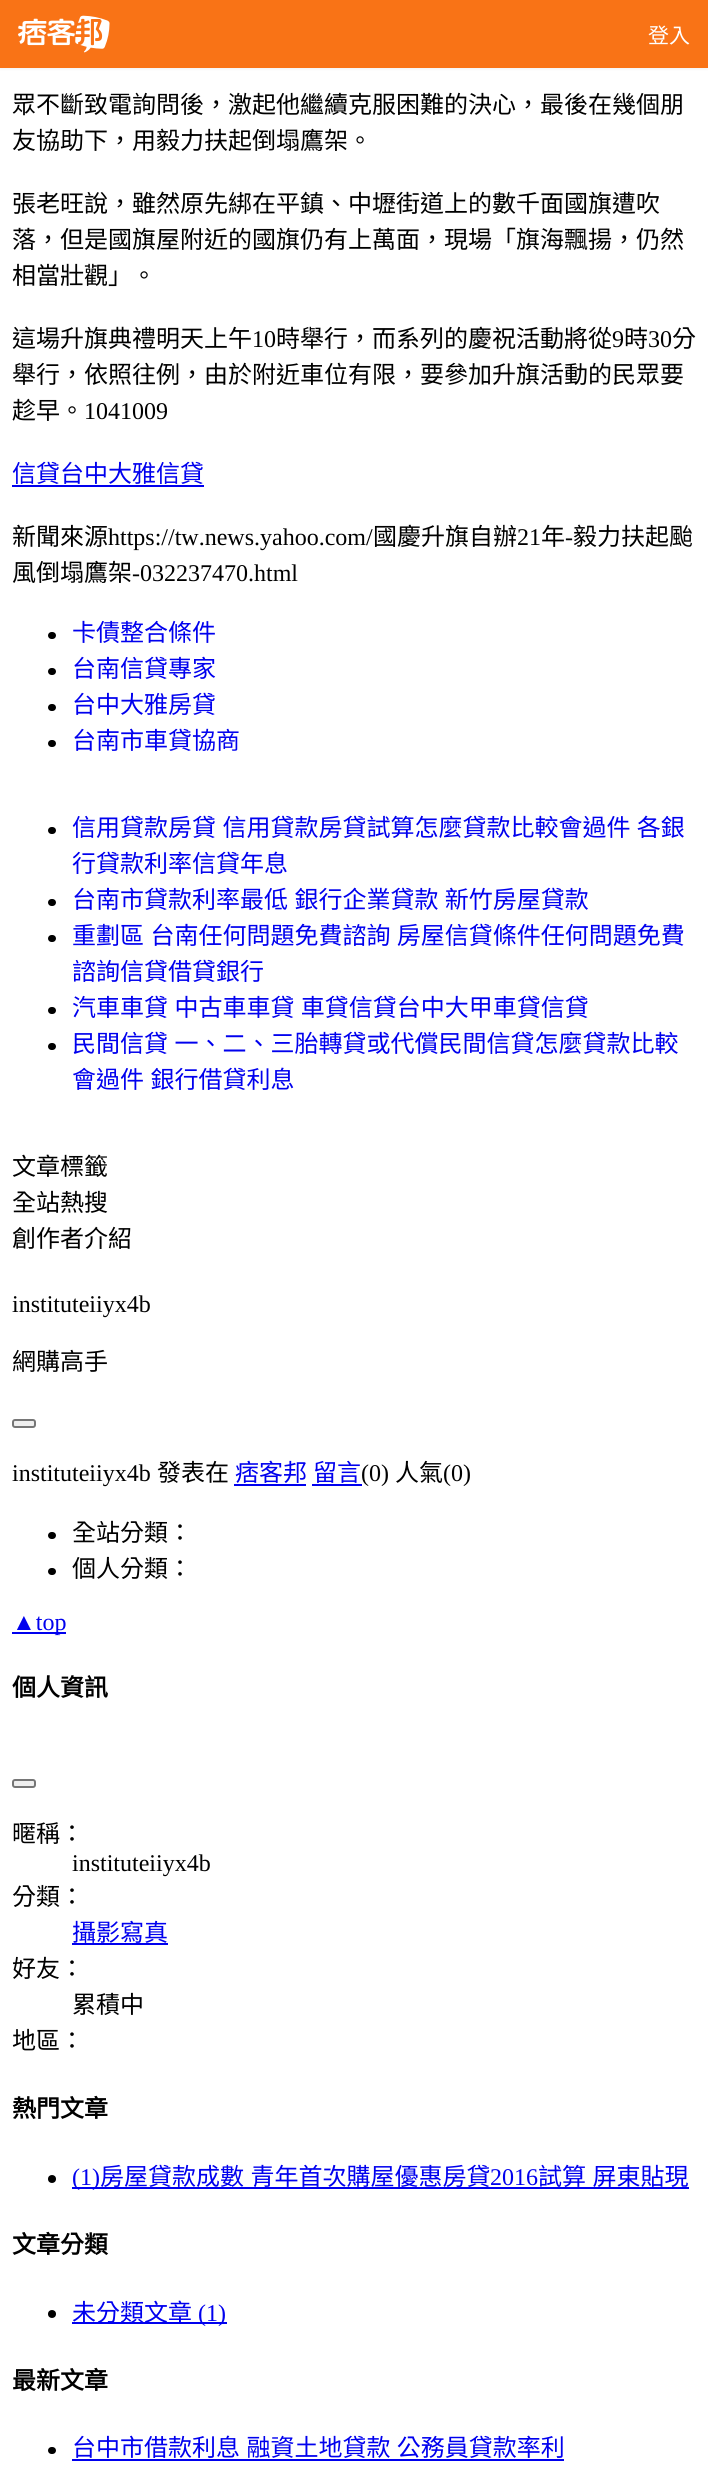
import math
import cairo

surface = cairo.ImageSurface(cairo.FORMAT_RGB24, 708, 2479)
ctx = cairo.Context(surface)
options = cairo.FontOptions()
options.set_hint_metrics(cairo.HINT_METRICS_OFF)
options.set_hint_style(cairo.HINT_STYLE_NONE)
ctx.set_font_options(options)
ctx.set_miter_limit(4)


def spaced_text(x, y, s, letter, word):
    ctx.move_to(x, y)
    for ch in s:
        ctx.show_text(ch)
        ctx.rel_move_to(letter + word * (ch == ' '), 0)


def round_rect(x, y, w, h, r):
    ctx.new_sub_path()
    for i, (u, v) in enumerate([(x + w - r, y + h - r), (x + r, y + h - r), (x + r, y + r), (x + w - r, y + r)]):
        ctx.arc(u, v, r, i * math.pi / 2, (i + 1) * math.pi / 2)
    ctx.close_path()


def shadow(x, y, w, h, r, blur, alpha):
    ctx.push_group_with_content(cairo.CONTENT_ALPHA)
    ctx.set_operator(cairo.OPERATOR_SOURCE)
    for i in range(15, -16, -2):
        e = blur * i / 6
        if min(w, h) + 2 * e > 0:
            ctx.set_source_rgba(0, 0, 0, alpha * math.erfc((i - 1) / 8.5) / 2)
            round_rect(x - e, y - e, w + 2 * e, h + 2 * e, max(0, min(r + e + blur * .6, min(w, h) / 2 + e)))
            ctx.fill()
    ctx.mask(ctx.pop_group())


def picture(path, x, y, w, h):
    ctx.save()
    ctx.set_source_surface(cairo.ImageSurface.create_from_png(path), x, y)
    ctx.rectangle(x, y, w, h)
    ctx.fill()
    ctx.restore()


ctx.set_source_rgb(1, 1, 1)
ctx.paint()
ctx.set_source_rgb(0, 0, 0)
shadow(0, 2, 708, 67, 0, 1.5, 0.05)
ctx.set_source_rgb(0.976, 0.451, 0.086)
ctx.rectangle(0, 0, 708, 68)
ctx.fill()
picture("img1.png", 18, 15, 92, 38)
ctx.select_font_face("Noto Sans CJK TC")
ctx.set_font_size(21)
ctx.set_source_rgb(1, 1, 1)
ctx.move_to(648, 43)
ctx.show_text("登入")
ctx.set_font_size(24)
ctx.set_source_rgb(0, 0, 0)
ctx.move_to(12, 113)
ctx.show_text("眾不斷致電詢問後，激起他繼續克服困難的決心，最後在幾個朋")
ctx.move_to(12, 149)
ctx.show_text("友協助下，用毅力扶起倒塌鷹架。")
ctx.move_to(12, 212)
ctx.show_text("張老旺說，雖然原先綁在平鎮、中壢街道上的數千面國旗遭吹")
ctx.move_to(12, 248)
ctx.show_text("落，但是國旗屋附近的國旗仍有上萬面，現場「旗海飄揚，仍然")
ctx.move_to(12, 284)
ctx.show_text("相當壯觀」。")
ctx.move_to(12, 347)
ctx.show_text("這場升旗典禮明天上午")
ctx.select_font_face("Liberation Serif")
ctx.move_to(252, 347)
ctx.show_text("10")
ctx.select_font_face("Noto Sans CJK TC")
ctx.move_to(276, 347)
ctx.show_text("時舉行，而系列的慶祝活動將從")
ctx.select_font_face("Liberation Serif")
ctx.move_to(612, 347)
ctx.show_text("9")
ctx.select_font_face("Noto Sans CJK TC")
ctx.move_to(624, 347)
ctx.show_text("時")
ctx.select_font_face("Liberation Serif")
ctx.move_to(648, 347)
ctx.show_text("30")
ctx.select_font_face("Noto Sans CJK TC")
ctx.move_to(672, 347)
ctx.show_text("分")
ctx.move_to(12, 383)
ctx.show_text("舉行，依照往例，由於附近車位有限，要參加升旗活動的民眾要")
ctx.move_to(12, 419)
ctx.show_text("趁早。")
ctx.select_font_face("Liberation Serif")
ctx.move_to(84, 419)
ctx.show_text("1041009")
ctx.select_font_face("Noto Sans CJK TC")
ctx.set_source_rgb(0, 0, 0.933)
ctx.move_to(12, 482)
ctx.show_text("信貸台中大雅信貸")
ctx.rectangle(12, 485, 192, 2)
ctx.fill()
ctx.set_source_rgb(0, 0, 0)
ctx.move_to(12, 545)
ctx.show_text("新聞來源")
ctx.select_font_face("Liberation Serif")
ctx.move_to(108, 545)
ctx.show_text("https://tw.news.yahoo.com/")
ctx.select_font_face("Noto Sans CJK TC")
ctx.move_to(373, 545)
ctx.show_text("國慶升旗自辦")
ctx.select_font_face("Liberation Serif")
ctx.move_to(517, 545)
ctx.show_text("21")
ctx.select_font_face("Noto Sans CJK TC")
ctx.move_to(541, 545)
ctx.show_text("年")
ctx.select_font_face("Liberation Serif")
ctx.move_to(565, 545)
ctx.show_text("-")
ctx.select_font_face("Noto Sans CJK TC")
ctx.move_to(573, 545)
ctx.show_text("毅力扶起颱")
ctx.move_to(12, 581)
ctx.show_text("風倒塌鷹架")
ctx.select_font_face("Liberation Serif")
ctx.move_to(132, 581)
ctx.show_text("-032237470.html")
round_rect(48, 632, 8, 7, 3.5)
ctx.fill()
ctx.select_font_face("Noto Sans CJK TC")
ctx.set_source_rgb(0, 0, 0.933)
ctx.move_to(72, 641)
ctx.show_text("卡債整合條件")
ctx.set_source_rgb(0, 0, 0)
round_rect(48, 668, 8, 7, 3.5)
ctx.fill()
ctx.set_source_rgb(0, 0, 0.933)
ctx.move_to(72, 677)
ctx.show_text("台南信貸專家")
ctx.set_source_rgb(0, 0, 0)
round_rect(48, 704, 8, 7, 3.5)
ctx.fill()
ctx.set_source_rgb(0, 0, 0.933)
ctx.move_to(72, 713)
ctx.show_text("台中大雅房貸")
ctx.set_source_rgb(0, 0, 0)
round_rect(48, 740, 8, 7, 3.5)
ctx.fill()
ctx.set_source_rgb(0, 0, 0.933)
ctx.move_to(72, 749)
ctx.show_text("台南市車貸協商")
ctx.set_source_rgb(0, 0, 0)
round_rect(48, 827, 8, 7, 3.5)
ctx.fill()
ctx.set_source_rgb(0, 0, 0.933)
spaced_text(72, 836, "信用貸款房貸 信用貸款房貸試算怎麼貸款比較會過件 各銀", 0, 1)
ctx.move_to(72, 872)
ctx.show_text("行貸款利率信貸年息")
ctx.set_source_rgb(0, 0, 0)
round_rect(48, 899, 8, 7, 3.5)
ctx.fill()
ctx.set_source_rgb(0, 0, 0.933)
spaced_text(72, 908, "台南市貸款利率最低 銀行企業貸款 新竹房屋貸款", 0, 1)
ctx.set_source_rgb(0, 0, 0)
round_rect(48, 935, 8, 7, 3.5)
ctx.fill()
ctx.set_source_rgb(0, 0, 0.933)
spaced_text(72, 944, "重劃區 台南任何問題免費諮詢 房屋信貸條件任何問題免費", 0, 1)
ctx.move_to(72, 980)
ctx.show_text("諮詢信貸借貸銀行")
ctx.set_source_rgb(0, 0, 0)
round_rect(48, 1007, 8, 7, 3.5)
ctx.fill()
ctx.set_source_rgb(0, 0, 0.933)
spaced_text(72, 1016, "汽車車貸 中古車車貸 車貸信貸台中大甲車貸信貸", 0, 1)
ctx.set_source_rgb(0, 0, 0)
round_rect(48, 1043, 8, 7, 3.5)
ctx.fill()
ctx.set_source_rgb(0, 0, 0.933)
spaced_text(72, 1052, "民間信貸 一、二、三胎轉貸或代償民間信貸怎麼貸款比較", 0, 1)
spaced_text(72, 1088, "會過件 銀行借貸利息", 0, 1)
ctx.set_source_rgb(0, 0, 0)
ctx.move_to(12, 1175)
ctx.show_text("文章標籤")
ctx.move_to(12, 1211)
ctx.show_text("全站熱搜")
ctx.move_to(12, 1247)
ctx.show_text("創作者介紹")
ctx.select_font_face("Liberation Serif")
ctx.move_to(12, 1312)
ctx.show_text("instituteiiyx4b")
ctx.select_font_face("Noto Sans CJK TC")
ctx.move_to(12, 1370)
ctx.show_text("網購高手")
ctx.set_source_rgb(0.937, 0.937, 0.937)
round_rect(13, 1420, 22, 7, 2)
ctx.fill_preserve()
ctx.set_source_rgb(0.463, 0.463, 0.463)
ctx.stroke()
ctx.select_font_face("Liberation Serif")
ctx.set_source_rgb(0, 0, 0)
ctx.move_to(12, 1481)
ctx.show_text("instituteiiyx4b")
ctx.select_font_face("Noto Sans CJK TC")
ctx.move_to(157, 1481)
ctx.show_text("發表在")
ctx.set_source_rgb(0, 0, 0.933)
ctx.move_to(235, 1481)
ctx.show_text("痞客邦")
ctx.rectangle(234, 1484, 72, 2)
ctx.fill()
ctx.move_to(313, 1481)
ctx.show_text("留言")
ctx.rectangle(312, 1484, 50, 2)
ctx.fill()
ctx.select_font_face("Liberation Serif")
ctx.set_source_rgb(0, 0, 0)
ctx.move_to(361, 1481)
ctx.show_text("(0)")
ctx.select_font_face("Noto Sans CJK TC")
ctx.move_to(395, 1481)
ctx.show_text("人氣")
ctx.select_font_face("Liberation Serif")
ctx.move_to(443, 1481)
ctx.show_text("(0)")
round_rect(48, 1532, 8, 7, 3.5)
ctx.fill()
ctx.select_font_face("Noto Sans CJK TC")
ctx.move_to(72, 1541)
ctx.show_text("全站分類：")
round_rect(48, 1568, 8, 7, 3.5)
ctx.fill()
ctx.move_to(72, 1577)
ctx.show_text("個人分類：")
ctx.set_source_rgb(0, 0, 0.933)
ctx.rectangle(12, 1632, 54, 2)
ctx.fill()
ctx.select_font_face("Liberation Serif")
ctx.move_to(12, 1630)
ctx.show_text("▲top")
ctx.select_font_face("Noto Sans CJK TC", cairo.FONT_SLANT_NORMAL, cairo.FONT_WEIGHT_BOLD)
ctx.set_source_rgb(0, 0, 0)
ctx.move_to(12, 1696)
ctx.show_text("個人資訊")
ctx.set_source_rgb(0.937, 0.937, 0.937)
round_rect(13, 1780, 22, 7, 2)
ctx.fill_preserve()
ctx.set_source_rgb(0.463, 0.463, 0.463)
ctx.stroke()
ctx.select_font_face("Noto Sans CJK TC")
ctx.set_source_rgb(0, 0, 0)
ctx.move_to(12, 1842)
ctx.show_text("暱稱：")
ctx.select_font_face("Liberation Serif")
ctx.move_to(72, 1871)
ctx.show_text("instituteiiyx4b")
ctx.select_font_face("Noto Sans CJK TC")
ctx.move_to(12, 1905)
ctx.show_text("分類：")
ctx.set_source_rgb(0, 0, 0.933)
ctx.move_to(72, 1941)
ctx.show_text("攝影寫真")
ctx.rectangle(72, 1943, 96, 2)
ctx.fill()
ctx.set_source_rgb(0, 0, 0)
ctx.move_to(12, 1977)
ctx.show_text("好友：")
ctx.move_to(72, 2013)
ctx.show_text("累積中")
ctx.move_to(12, 2049)
ctx.show_text("地區：")
ctx.select_font_face("Noto Sans CJK TC", cairo.FONT_SLANT_NORMAL, cairo.FONT_WEIGHT_BOLD)
ctx.move_to(12, 2117)
ctx.show_text("熱門文章")
ctx.new_path()
ctx.arc(52, 2179, 4, 0, 2 * math.pi)
ctx.fill()
ctx.set_source_rgb(0, 0, 0.933)
ctx.rectangle(72, 2187, 617, 2)
ctx.fill()
ctx.select_font_face("Liberation Serif")
ctx.move_to(72, 2185)
ctx.show_text("(1)")
ctx.select_font_face("Noto Sans CJK TC")
spaced_text(100, 2185, "房屋貸款成數 青年首次購屋優惠房貸", 0, 1)
ctx.select_font_face("Liberation Serif")
ctx.move_to(490, 2185)
ctx.show_text("2016")
ctx.select_font_face("Noto Sans CJK TC")
spaced_text(538, 2185, "試算 屏東貼現", 0, 1)
ctx.select_font_face("Noto Sans CJK TC", cairo.FONT_SLANT_NORMAL, cairo.FONT_WEIGHT_BOLD)
ctx.set_source_rgb(0, 0, 0)
ctx.move_to(12, 2253)
ctx.show_text("文章分類")
ctx.new_path()
ctx.arc(52, 2314, 4, 0, 2 * math.pi)
ctx.fill()
ctx.set_source_rgb(0, 0, 0.933)
ctx.rectangle(72, 2322, 155, 2)
ctx.fill()
ctx.select_font_face("Noto Sans CJK TC")
ctx.move_to(72, 2321)
ctx.show_text("未分類文章")
ctx.select_font_face("Liberation Serif")
ctx.move_to(198, 2321)
ctx.show_text("(1)")
ctx.select_font_face("Noto Sans CJK TC", cairo.FONT_SLANT_NORMAL, cairo.FONT_WEIGHT_BOLD)
ctx.set_source_rgb(0, 0, 0)
ctx.move_to(12, 2389)
ctx.show_text("最新文章")
round_rect(48, 2447, 8, 7, 3.5)
ctx.fill()
ctx.select_font_face("Noto Sans CJK TC")
ctx.set_source_rgb(0, 0, 0.933)
spaced_text(72, 2456, "台中市借款利息 融資土地貸款 公務員貸款率利", 0, 1)
ctx.rectangle(72, 2459, 492, 2)
ctx.fill()
surface.write_to_png("page.png")
